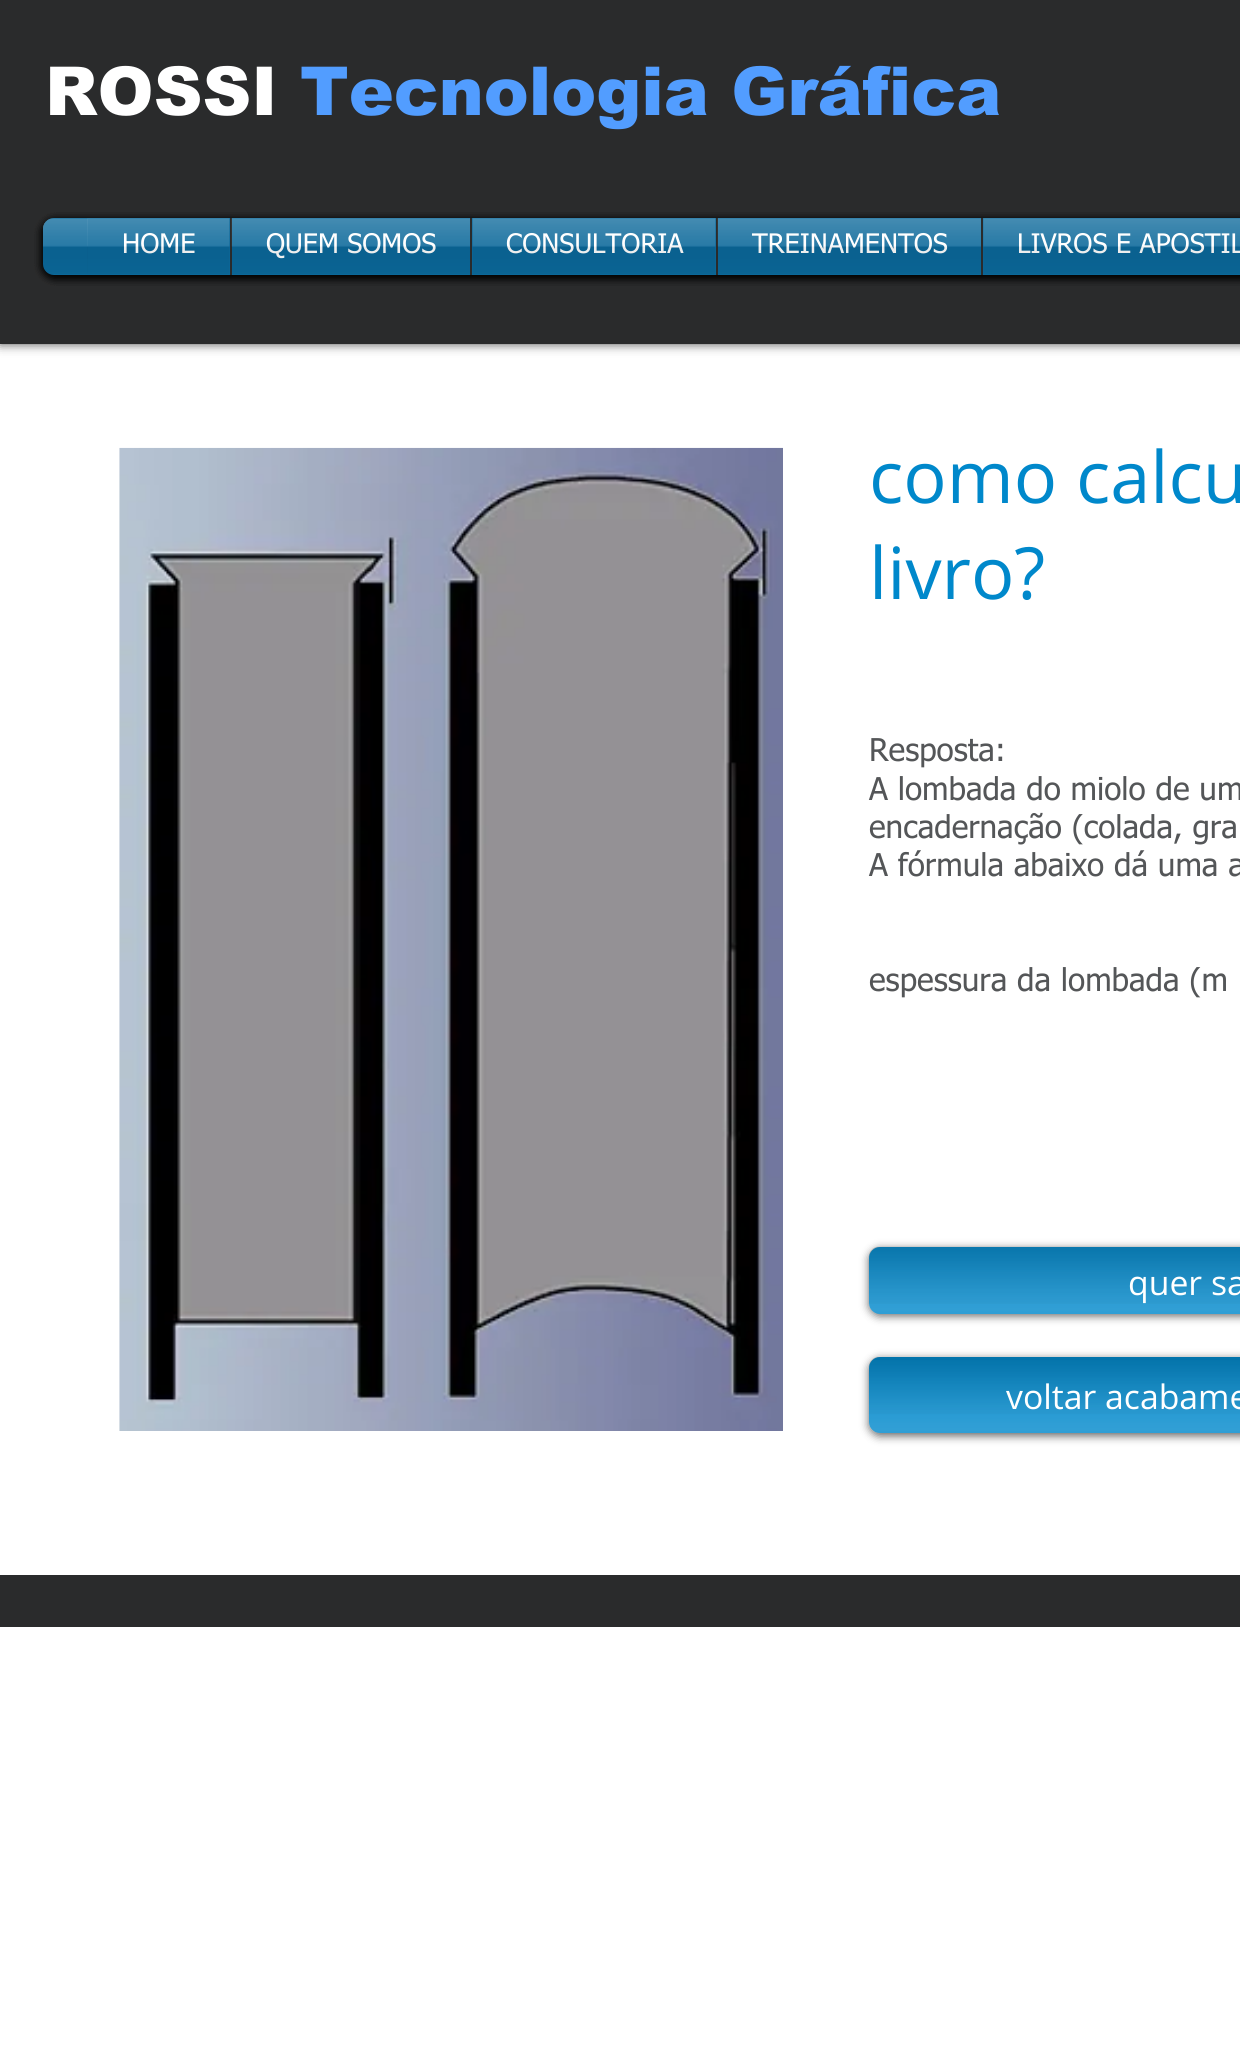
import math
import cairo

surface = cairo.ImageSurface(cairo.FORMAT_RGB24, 1240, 2051)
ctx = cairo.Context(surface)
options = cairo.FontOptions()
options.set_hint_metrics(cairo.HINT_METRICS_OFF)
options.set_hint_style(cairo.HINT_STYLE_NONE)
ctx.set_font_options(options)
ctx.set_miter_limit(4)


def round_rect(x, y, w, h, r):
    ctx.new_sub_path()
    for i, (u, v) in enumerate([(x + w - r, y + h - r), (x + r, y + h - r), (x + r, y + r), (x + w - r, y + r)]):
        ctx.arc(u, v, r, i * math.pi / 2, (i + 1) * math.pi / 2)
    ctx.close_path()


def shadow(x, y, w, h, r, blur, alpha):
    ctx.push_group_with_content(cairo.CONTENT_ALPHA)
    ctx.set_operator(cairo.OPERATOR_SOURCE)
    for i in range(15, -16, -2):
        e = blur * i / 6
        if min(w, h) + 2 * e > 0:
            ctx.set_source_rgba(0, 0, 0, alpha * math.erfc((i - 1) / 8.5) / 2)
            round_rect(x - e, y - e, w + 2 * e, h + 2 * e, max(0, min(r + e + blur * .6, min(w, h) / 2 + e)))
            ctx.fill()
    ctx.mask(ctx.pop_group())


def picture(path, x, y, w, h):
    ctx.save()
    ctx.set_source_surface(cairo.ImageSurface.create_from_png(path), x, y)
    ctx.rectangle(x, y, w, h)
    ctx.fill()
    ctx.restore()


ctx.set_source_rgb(1, 1, 1)
ctx.paint()
ctx.set_source_rgb(0, 0, 0)
shadow(0, 0, 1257, 344, 0, 5.5, 0.7)
ctx.set_source_rgb(0.165, 0.169, 0.173)
ctx.rectangle(0, 0, 1240, 344)
ctx.fill()
ctx.select_font_face("arial Black")
ctx.set_font_size(67.5)
ctx.set_source_rgb(1, 1, 1)
ctx.move_to(45, 115)
ctx.show_text("ROSSI")
ctx.set_source_rgb(0.322, 0.616, 1)
ctx.move_to(300, 115)
ctx.show_text("Tecnologia Gráfica")
ctx.set_source_rgb(0, 0, 0)
shadow(45, 221, 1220, 56, 11, 4.5, 0.6)
picture("img3.png", 52, 218, 2, 1)
shadow(43, 221, 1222, 56, 11, 4.5, 0.6)
picture("img1.png", 43, 218, 11, 56)
shadow(43, 221, 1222, 56, 11, 4.5, 0.6)
picture("img2.png", 43, 218, 11, 56)
shadow(43, 221, 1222, 56, 11, 4.5, 0.6)
ctx.set_source_rgb(0.043, 0.408, 0.604)
round_rect(43, 218, 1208, 57, 11)
ctx.fill()
picture("img4.png", 43, 218, 45, 56)
ctx.select_font_face("tahoma")
ctx.set_font_size(27)
ctx.set_source_rgb(1, 1, 1)
ctx.move_to(122, 253)
ctx.show_text("HOME")
picture("img5.png", 87, 218, 143, 56)
ctx.set_source_rgb(0.165, 0.169, 0.173)
ctx.rectangle(230, 218, 2, 57)
ctx.fill()
ctx.set_source_rgb(1, 1, 1)
ctx.move_to(266, 253)
ctx.show_text("QUEM SOMOS")
picture("img6.png", 231, 218, 239, 56)
ctx.set_source_rgb(0.165, 0.169, 0.173)
ctx.rectangle(470, 218, 2, 57)
ctx.fill()
ctx.set_source_rgb(1, 1, 1)
ctx.move_to(506, 253)
ctx.show_text("CONSULTORIA")
picture("img7.png", 472, 218, 244, 56)
ctx.set_source_rgb(0.165, 0.169, 0.173)
ctx.rectangle(716, 218, 2, 57)
ctx.fill()
ctx.set_source_rgb(1, 1, 1)
ctx.move_to(752, 253)
ctx.show_text("TREINAMENTOS")
picture("img8.png", 717, 218, 264, 56)
ctx.set_source_rgb(0.165, 0.169, 0.173)
ctx.rectangle(981, 218, 2, 57)
ctx.fill()
ctx.set_source_rgb(1, 1, 1)
ctx.move_to(1017, 253)
ctx.show_text("LIVROS E APOSTIL")
picture("img9.png", 983, 218, 257, 56)
picture("img10.png", 119, 447, 664, 984)
ctx.select_font_face("Open Sans")
ctx.set_font_size(72)
ctx.set_source_rgb(0, 0.533, 0.796)
ctx.move_to(869, 503)
ctx.show_text("como calcu")
ctx.move_to(869, 599)
ctx.show_text("livro?")
ctx.select_font_face("tahoma")
ctx.set_font_size(31.5)
ctx.set_source_rgb(0.329, 0.337, 0.345)
ctx.move_to(869, 761)
ctx.show_text("Resposta:")
ctx.move_to(869, 800)
ctx.show_text("A lombada do miolo de um")
ctx.move_to(869, 838)
ctx.show_text("encadernação (colada, gra")
ctx.move_to(869, 876)
ctx.show_text("A fórmula abaixo dá uma a")
ctx.move_to(869, 991)
ctx.show_text("espessura da lombada (m")
ctx.set_source_rgb(0, 0, 0)
shadow(869, 1249, 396, 67, 11, 4.5, 0.6)
ctx.set_source_rgb(0, 0.533, 0.796)
round_rect(869, 1247, 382, 67, 11)
ctx.fill()
picture("img11.png", 868, 1246, 372, 58)
picture("img12.png", 869, 1247, 371, 67)
ctx.select_font_face("Open Sans")
ctx.set_font_size(33.75)
ctx.set_source_rgb(1, 1, 1)
ctx.move_to(1128, 1295)
ctx.show_text("quer sa")
ctx.set_source_rgb(0, 0, 0)
shadow(869, 1359, 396, 77, 11, 4.5, 0.6)
ctx.set_source_rgb(0, 0.533, 0.796)
round_rect(869, 1357, 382, 76, 11)
ctx.fill()
picture("img13.png", 868, 1357, 372, 57)
picture("img14.png", 869, 1360, 371, 73)
ctx.set_source_rgb(1, 1, 1)
ctx.move_to(1006, 1409)
ctx.show_text("voltar acabame")
ctx.set_source_rgb(0.165, 0.169, 0.173)
ctx.rectangle(0, 1575, 1240, 52)
ctx.fill()
surface.write_to_png("page.png")
